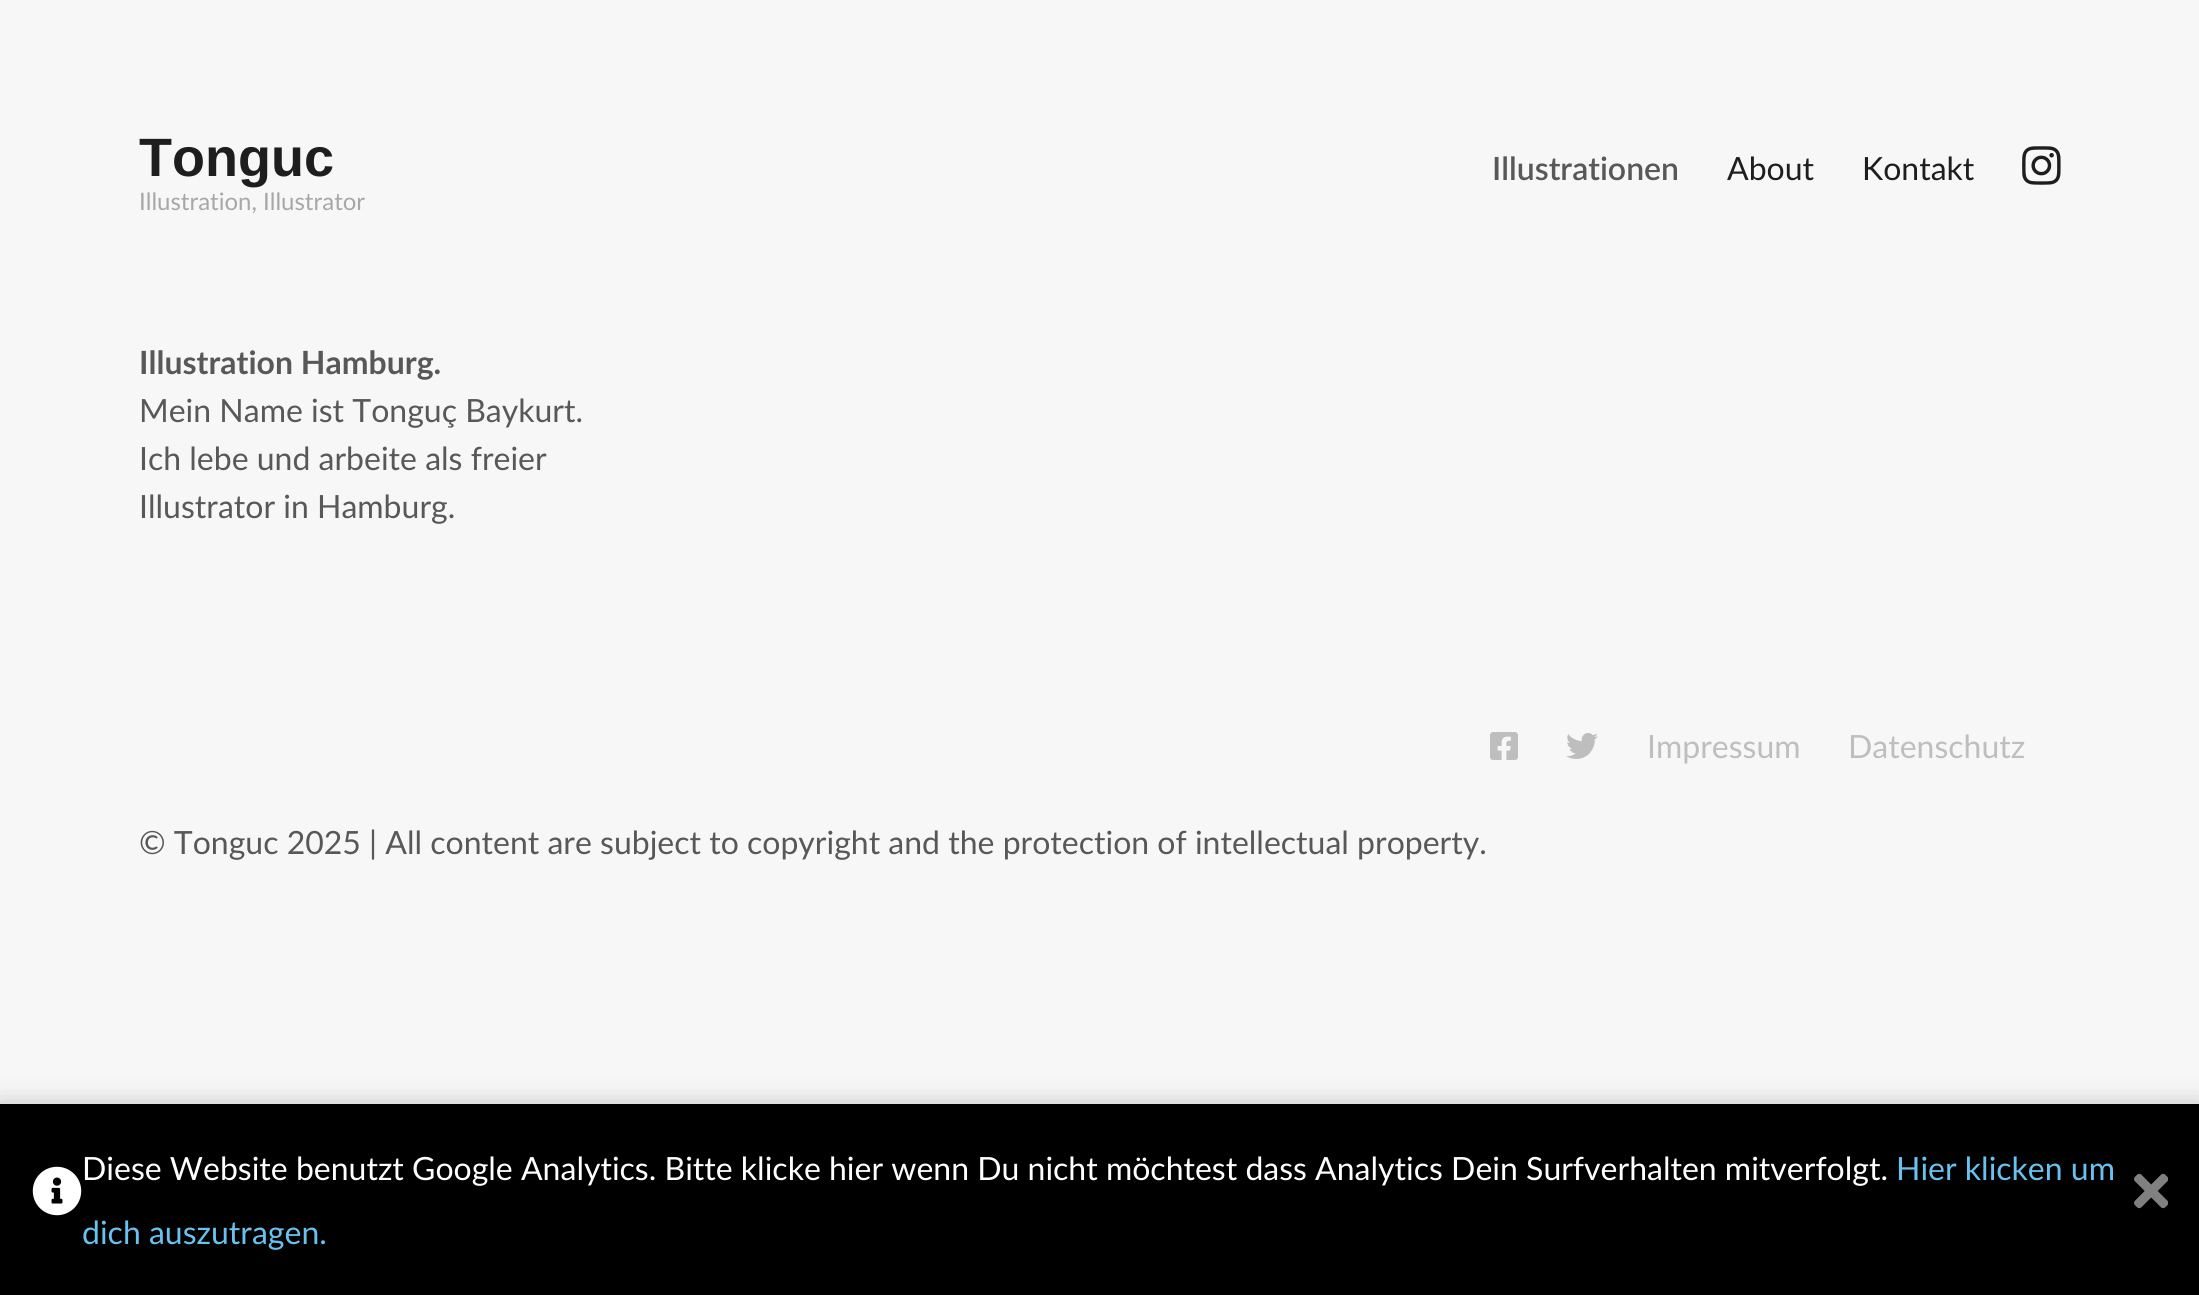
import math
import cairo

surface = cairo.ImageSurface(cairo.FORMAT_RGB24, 2199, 1295)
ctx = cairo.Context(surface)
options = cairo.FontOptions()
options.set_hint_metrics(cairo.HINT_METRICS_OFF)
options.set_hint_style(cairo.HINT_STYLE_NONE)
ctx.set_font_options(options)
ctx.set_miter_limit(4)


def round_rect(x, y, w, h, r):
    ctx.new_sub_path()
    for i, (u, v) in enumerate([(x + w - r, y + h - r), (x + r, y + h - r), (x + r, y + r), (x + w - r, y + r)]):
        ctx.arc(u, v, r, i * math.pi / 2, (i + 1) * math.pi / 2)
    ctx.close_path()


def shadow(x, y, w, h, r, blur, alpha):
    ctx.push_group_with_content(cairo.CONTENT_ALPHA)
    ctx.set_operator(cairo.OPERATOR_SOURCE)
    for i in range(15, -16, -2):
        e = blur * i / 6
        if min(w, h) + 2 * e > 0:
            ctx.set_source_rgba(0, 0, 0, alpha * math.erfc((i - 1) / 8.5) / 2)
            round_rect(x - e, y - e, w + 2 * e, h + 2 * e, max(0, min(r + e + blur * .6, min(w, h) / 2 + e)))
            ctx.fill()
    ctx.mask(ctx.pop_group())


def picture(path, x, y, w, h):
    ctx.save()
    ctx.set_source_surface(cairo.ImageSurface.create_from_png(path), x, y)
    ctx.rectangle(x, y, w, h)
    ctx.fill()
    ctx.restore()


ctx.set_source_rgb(0.965, 0.965, 0.965)
ctx.paint()
ctx.select_font_face("Liberation Sans", cairo.FONT_SLANT_NORMAL, cairo.FONT_WEIGHT_BOLD)
ctx.set_font_size(54)
ctx.set_source_rgb(0.118, 0.118, 0.118)
ctx.move_to(139, 176)
ctx.show_text("Tonguc")
ctx.select_font_face("Lato")
ctx.set_font_size(24)
ctx.set_source_rgb(0.655, 0.655, 0.655)
ctx.move_to(139, 210)
ctx.show_text("Illustration, Illustrator")
ctx.select_font_face("Lato SemiBold")
ctx.set_font_size(32)
ctx.set_source_rgb(0.345, 0.345, 0.345)
ctx.move_to(1492, 180)
ctx.show_text("Illustrationen")
ctx.select_font_face("Lato")
ctx.set_source_rgb(0.118, 0.118, 0.118)
ctx.move_to(1727, 180)
ctx.show_text("About")
ctx.move_to(1862, 180)
ctx.show_text("Kontakt")
picture("img1.png", 2022, 146, 39, 39)
ctx.select_font_face("Lato", cairo.FONT_SLANT_NORMAL, cairo.FONT_WEIGHT_BOLD)
ctx.set_source_rgb(0.345, 0.345, 0.345)
ctx.move_to(139, 374)
ctx.show_text("Illustration Hamburg.")
ctx.select_font_face("Lato")
ctx.move_to(139, 422)
ctx.show_text("Mein Name ist Tonguç Baykurt.")
ctx.move_to(139, 470)
ctx.show_text("Ich lebe und arbeite als freier")
ctx.move_to(139, 518)
ctx.show_text("Illustrator in Hamburg.")
picture("img2.png", 1490, 732, 28, 28)
picture("img3.png", 1566, 733, 32, 26)
ctx.set_source_rgb(0.745, 0.745, 0.745)
ctx.move_to(1647, 758)
ctx.show_text("Impressum")
ctx.move_to(1848, 758)
ctx.show_text("Datenschutz")
ctx.set_source_rgb(0.345, 0.345, 0.345)
ctx.move_to(139, 854)
ctx.show_text("© Tonguc 2025 | All content are subject to copyright and the protection of intellectual property.")
ctx.set_source_rgb(0, 0, 0)
shadow(0, 1112, 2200, 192, 0, 15, 0.4)
ctx.set_source_rgb(0, 0, 0)
ctx.rectangle(0, 1104, 2199, 191)
ctx.fill()
picture("img4.png", 32, 1166, 50, 50)
ctx.set_source_rgb(1, 1, 1)
ctx.move_to(82, 1180)
ctx.show_text("Diese Website benutzt Google Analytics. Bitte klicke hier wenn Du nicht möchtest dass Analytics Dein Surfverhalten mitverfolgt.")
ctx.set_source_rgb(0.404, 0.761, 0.941)
ctx.move_to(1896, 1180)
ctx.show_text("Hier klicken um")
ctx.move_to(82, 1244)
ctx.show_text("dich auszutragen.")
picture("img5.png", 2134, 1173, 34, 36)
surface.write_to_png("page.png")
